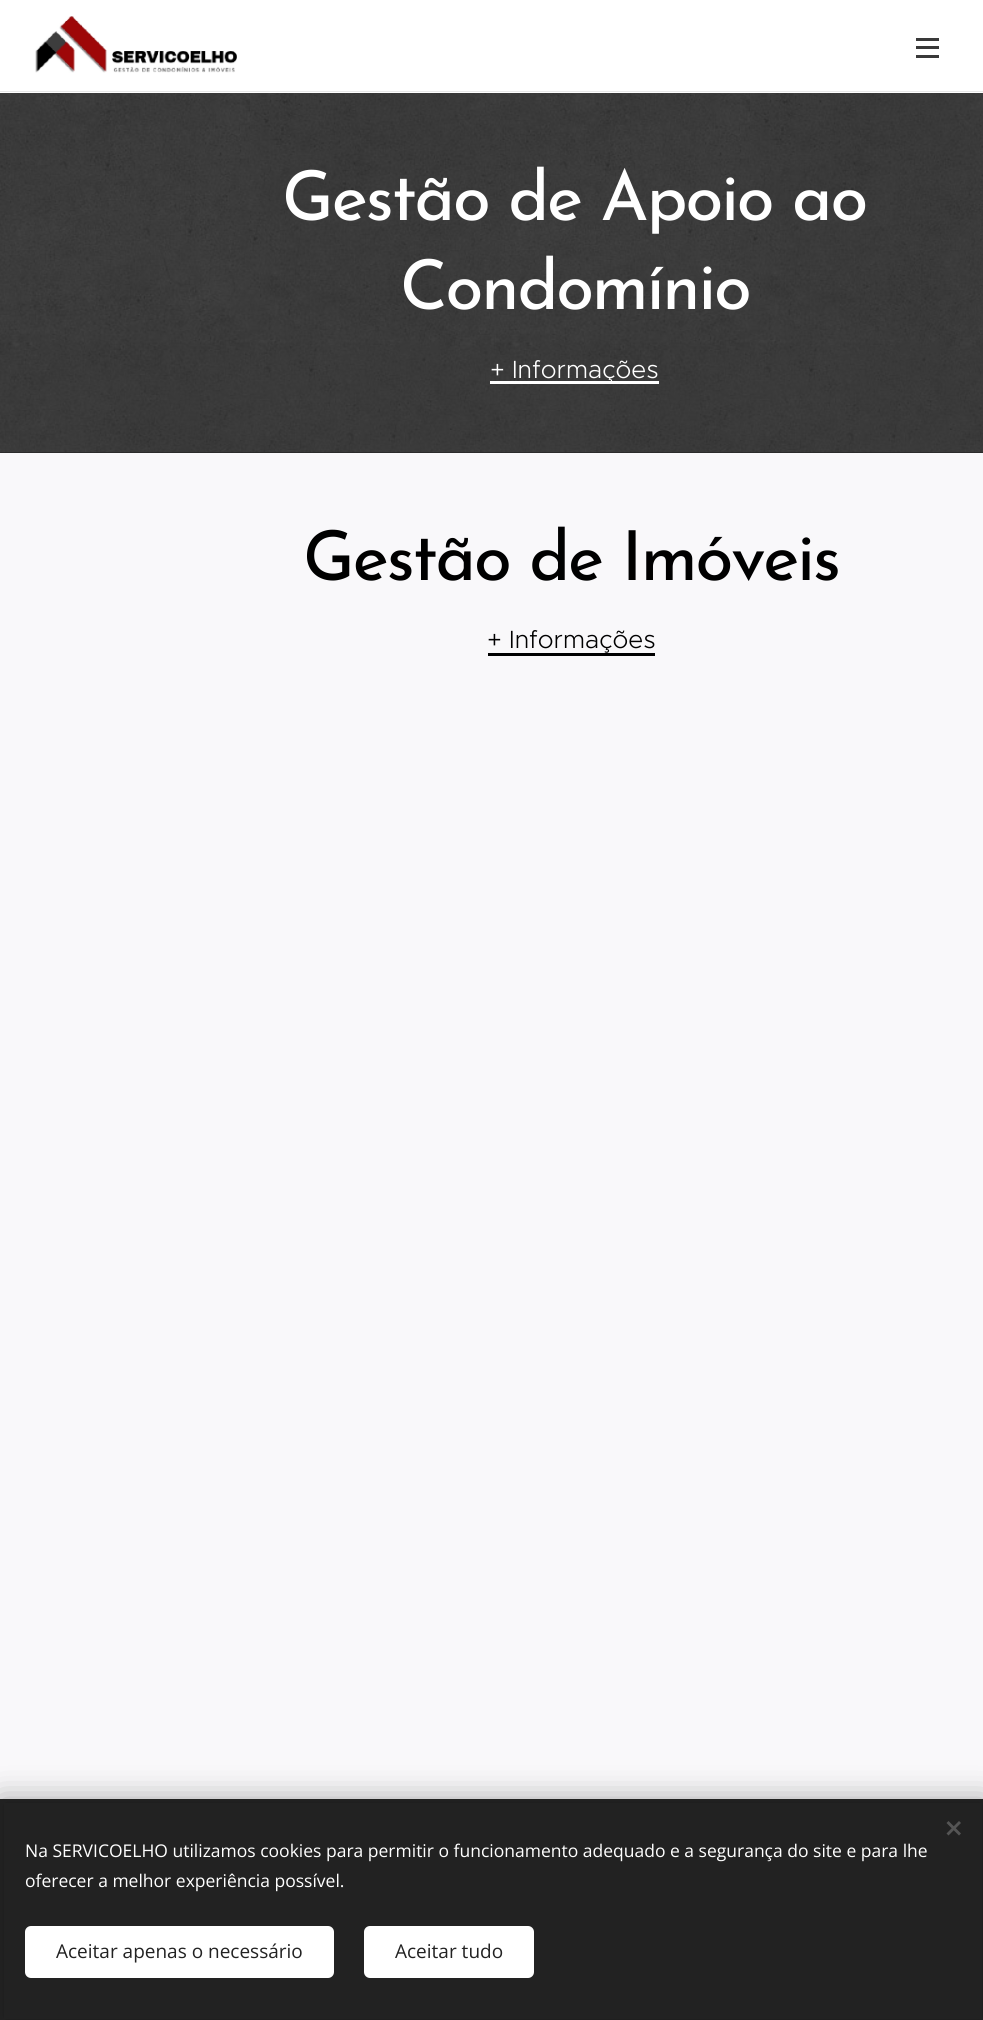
import math
import cairo

surface = cairo.ImageSurface(cairo.FORMAT_RGB24, 983, 2020)
ctx = cairo.Context(surface)
options = cairo.FontOptions()
options.set_hint_metrics(cairo.HINT_METRICS_OFF)
options.set_hint_style(cairo.HINT_STYLE_NONE)
ctx.set_font_options(options)
ctx.set_miter_limit(4)


def spaced_text(x, y, s, letter, word):
    ctx.move_to(x, y)
    for ch in s:
        ctx.show_text(ch)
        ctx.rel_move_to(letter + word * (ch == ' '), 0)


def round_rect(x, y, w, h, r):
    ctx.new_sub_path()
    for i, (u, v) in enumerate([(x + w - r, y + h - r), (x + r, y + h - r), (x + r, y + r), (x + w - r, y + r)]):
        ctx.arc(u, v, r, i * math.pi / 2, (i + 1) * math.pi / 2)
    ctx.close_path()


def shadow(x, y, w, h, r, blur, alpha):
    ctx.push_group_with_content(cairo.CONTENT_ALPHA)
    ctx.set_operator(cairo.OPERATOR_SOURCE)
    for i in range(15, -16, -2):
        e = blur * i / 6
        if min(w, h) + 2 * e > 0:
            ctx.set_source_rgba(0, 0, 0, alpha * math.erfc((i - 1) / 8.5) / 2)
            round_rect(x - e, y - e, w + 2 * e, h + 2 * e, max(0, min(r + e + blur * .6, min(w, h) / 2 + e)))
            ctx.fill()
    ctx.mask(ctx.pop_group())


def picture(path, x, y, w, h):
    ctx.save()
    ctx.set_source_surface(cairo.ImageSurface.create_from_png(path), x, y)
    ctx.rectangle(x, y, w, h)
    ctx.fill()
    ctx.restore()


ctx.set_source_rgb(0.153, 0.153, 0.153)
ctx.paint()
ctx.set_source_rgb(1, 1, 1)
ctx.rectangle(0, 0, 983, 93)
ctx.fill()
picture("img1.png", 35, 16, 202, 57)
ctx.set_source_rgb(0.224, 0.224, 0.224)
ctx.rectangle(916, 46, 23, 3)
ctx.fill()
ctx.rectangle(916, 38, 23, 3)
ctx.fill()
ctx.rectangle(916, 55, 23, 3)
ctx.fill()
ctx.set_source_rgb(0.91, 0.91, 0.91)
ctx.rectangle(0, 91, 983, 1)
ctx.fill()
picture("img2.png", 0, 93, 983, 360)
ctx.select_font_face("Josefin Sans")
ctx.set_font_size(68.75)
ctx.set_source_rgb(1, 1, 1)
spaced_text(282, 220, "Gestão de Apoio ao", -2.1, 0)
spaced_text(400, 309, "Condomínio", -2.1, 0)
ctx.rectangle(490, 381, 169, 3)
ctx.fill()
ctx.select_font_face("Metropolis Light")
ctx.set_font_size(25)
ctx.move_to(490, 378)
ctx.show_text("+ Informações")
ctx.set_source_rgb(0.976, 0.969, 0.98)
ctx.rectangle(0, 453, 983, 1346)
ctx.fill()
ctx.select_font_face("Josefin Sans")
ctx.set_font_size(68.75)
ctx.set_source_rgb(0, 0, 0)
spaced_text(303, 580, "Gestão de Imóveis", -2.1, 0)
ctx.select_font_face("Metropolis Light")
ctx.set_font_size(25)
ctx.move_to(487, 648)
ctx.show_text("+ Informações")
ctx.rectangle(488, 653, 167, 3)
ctx.fill()
ctx.set_source_rgb(0, 0, 0)
shadow(0, 1799, 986, 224, 0, 15.5, 0.33)
ctx.set_source_rgb(0.133, 0.133, 0.133)
ctx.rectangle(4, 1803, 978, 216)
ctx.fill()
ctx.set_source_rgb(0.333, 0.333, 0.333)
ctx.new_path()
ctx.move_to(946.5, 1833.5)
ctx.line_to(959, 1821)
ctx.line_to(961, 1823)
ctx.line_to(948.5, 1835.5)
ctx.close_path()
ctx.fill()
ctx.new_path()
ctx.move_to(948.5, 1821)
ctx.line_to(961, 1833.5)
ctx.line_to(959, 1835.5)
ctx.line_to(946.5, 1823)
ctx.close_path()
ctx.fill()
ctx.select_font_face("Open Sans")
ctx.set_font_size(17.5)
ctx.set_source_rgb(1, 1, 1)
ctx.move_to(25, 1857)
ctx.show_text("Na SERVICOELHO utilizamos cookies para permitir o funcionamento adequado e a segurança do site e para lhe")
ctx.move_to(25, 1887)
ctx.show_text("oferecer a melhor experiência possível.")
round_rect(25, 1926, 309, 52, 6)
ctx.fill()
ctx.set_font_size(19)
ctx.set_source_rgb(0.133, 0.133, 0.133)
ctx.move_to(56, 1958)
ctx.show_text("Aceitar apenas o necessário")
ctx.set_source_rgb(1, 1, 1)
round_rect(364, 1926, 170, 52, 6)
ctx.fill()
ctx.set_source_rgb(0.133, 0.133, 0.133)
ctx.move_to(395, 1958)
ctx.show_text("Aceitar tudo")
surface.write_to_png("page.png")
